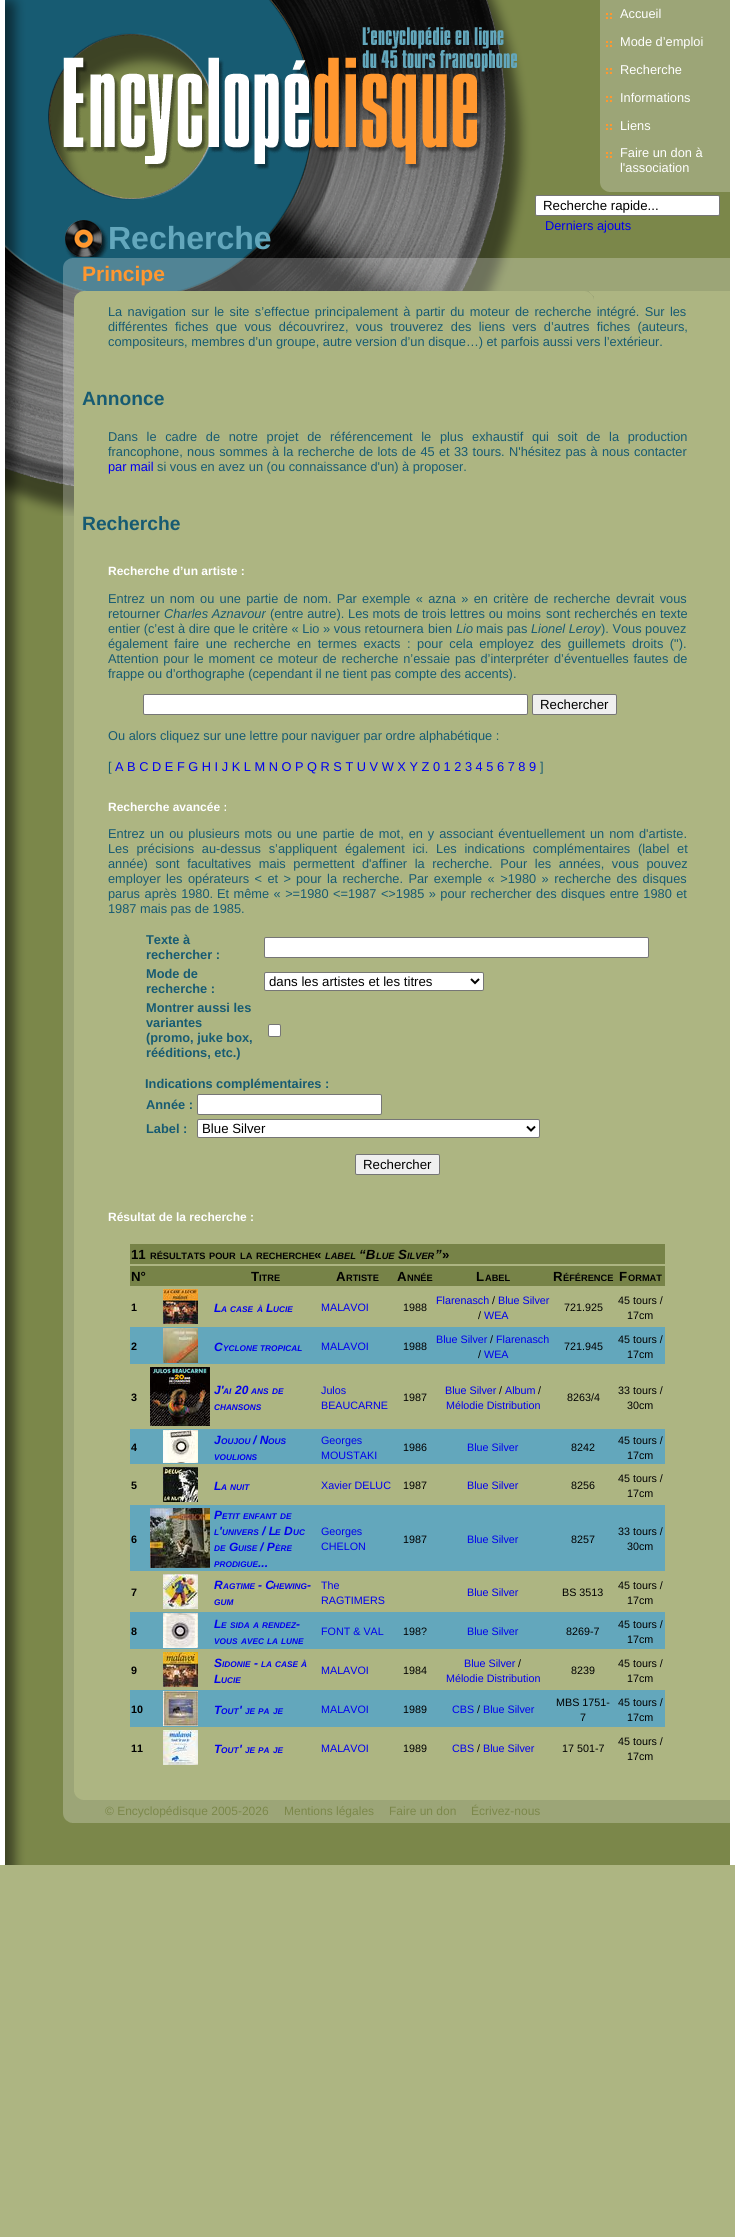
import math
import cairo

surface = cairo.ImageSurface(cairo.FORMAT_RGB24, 735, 2237)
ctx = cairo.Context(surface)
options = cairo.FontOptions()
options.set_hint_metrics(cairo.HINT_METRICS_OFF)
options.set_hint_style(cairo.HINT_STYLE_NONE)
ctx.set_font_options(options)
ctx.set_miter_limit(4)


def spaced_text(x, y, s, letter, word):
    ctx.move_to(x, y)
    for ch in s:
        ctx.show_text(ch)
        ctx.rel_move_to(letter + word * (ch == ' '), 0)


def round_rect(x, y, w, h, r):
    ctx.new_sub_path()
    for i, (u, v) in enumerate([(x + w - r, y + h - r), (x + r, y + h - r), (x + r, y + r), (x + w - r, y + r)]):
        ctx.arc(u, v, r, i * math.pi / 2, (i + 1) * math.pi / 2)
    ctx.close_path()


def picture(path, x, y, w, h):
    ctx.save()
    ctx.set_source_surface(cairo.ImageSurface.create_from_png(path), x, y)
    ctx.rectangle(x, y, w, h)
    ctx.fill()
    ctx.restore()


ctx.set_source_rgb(0.678, 0.71, 0.51)
ctx.paint()
picture("img1.png", 0, 0, 63, 1865)
ctx.set_source_rgb(1, 1, 1)
ctx.rectangle(730, 0, 5, 1865)
ctx.fill()
picture("img2.png", 63, 516, 667, 1276)
picture("img3.png", 5, 0, 725, 516)
ctx.set_source_rgb(0.612, 0.647, 0.467)
ctx.rectangle(600, 0, 130, 192)
ctx.fill()
picture("img4.png", 600, 183, 9, 9)
picture("img5.png", 606, 13, 6, 6)
ctx.select_font_face("Liberation Sans")
ctx.set_font_size(12.8)
ctx.set_source_rgb(1, 1, 1)
ctx.move_to(620, 18)
ctx.show_text("Accueil")
picture("img5.png", 606, 41, 6, 6)
ctx.move_to(620, 46)
ctx.show_text("Mode d’emploi")
picture("img5.png", 606, 68, 6, 6)
ctx.move_to(620, 74)
ctx.show_text("Recherche")
picture("img5.png", 606, 96, 6, 6)
ctx.move_to(620, 102)
ctx.show_text("Informations")
picture("img5.png", 606, 124, 6, 6)
ctx.move_to(620, 130)
ctx.show_text("Liens")
picture("img5.png", 606, 152, 6, 6)
ctx.move_to(620, 157)
ctx.show_text("Faire un don à")
ctx.move_to(620, 172)
ctx.show_text("l'association")
round_rect(535.5, 195.5, 184, 20, 1.5)
ctx.fill_preserve()
ctx.set_source_rgb(0.463, 0.463, 0.463)
ctx.set_line_width(1)
ctx.stroke()
ctx.set_font_size(13.25)
ctx.set_source_rgb(0, 0, 0)
ctx.move_to(543, 210)
ctx.show_text("Recherche rapide...")
ctx.set_font_size(12.8)
ctx.set_source_rgb(0, 0, 0.933)
ctx.move_to(545, 230)
ctx.show_text("Derniers ajouts")
picture("img6.png", 65, 220, 43, 37)
ctx.select_font_face("Liberation Sans", cairo.FONT_SLANT_NORMAL, cairo.FONT_WEIGHT_BOLD)
ctx.set_font_size(32)
ctx.set_source_rgb(0.388, 0.655, 0.737)
ctx.move_to(108, 249)
ctx.show_text("Recherche")
ctx.set_font_size(21)
ctx.set_source_rgb(1, 0.592, 0.184)
ctx.move_to(82, 281)
ctx.show_text("Principe")
ctx.select_font_face("Liberation Sans")
ctx.set_font_size(12.8)
ctx.set_source_rgb(0.09, 0.357, 0.447)
spaced_text(108, 316, "La navigation sur le site s’effectue principalement à partir du moteur de recherche intégré. Sur les", 0, 1.75)
spaced_text(108, 331, "différentes fiches que vous découvrirez, vous trouverez des liens vers d’autres fiches (auteurs,", 0, 3.75)
ctx.move_to(108, 346)
ctx.show_text("compositeurs, membres d’un groupe, autre version d’un disque…) et parfois aussi vers l’extérieur.")
ctx.select_font_face("Liberation Sans", cairo.FONT_SLANT_NORMAL, cairo.FONT_WEIGHT_BOLD)
ctx.set_font_size(19.25)
ctx.move_to(82, 405)
ctx.show_text("Annonce")
ctx.select_font_face("Liberation Sans")
ctx.set_font_size(12.8)
spaced_text(108, 441, "Dans le cadre de notre projet de référencement le plus exhaustif qui soit de la production", 0, 5.1)
spaced_text(108, 456, "francophone, nous sommes à la recherche de lots de 45 et 33 tours. N'hésitez pas à nous contacter", 0, 0.8)
ctx.set_source_rgb(0, 0, 0.933)
ctx.move_to(108, 471)
ctx.show_text("par mail")
ctx.set_source_rgb(0.09, 0.357, 0.447)
ctx.move_to(157, 471)
ctx.show_text("si vous en avez un (ou connaissance d'un) à proposer.")
ctx.select_font_face("Liberation Sans", cairo.FONT_SLANT_NORMAL, cairo.FONT_WEIGHT_BOLD)
ctx.set_font_size(19.25)
ctx.move_to(82, 530)
ctx.show_text("Recherche")
ctx.set_font_size(12)
ctx.set_source_rgb(1, 1, 1)
ctx.move_to(108, 575)
ctx.show_text("Recherche d’un artiste :")
ctx.select_font_face("Liberation Sans")
ctx.set_font_size(12.8)
ctx.set_source_rgb(0.09, 0.357, 0.447)
spaced_text(108, 603, "Entrez un nom ou une partie de nom. Par exemple « azna » en critère de recherche", 0, 1.75)
spaced_text(616, 603, "devrait vous", 0, 1.75)
ctx.move_to(108, 618)
ctx.show_text("retourner")
ctx.select_font_face("Liberation Sans", cairo.FONT_SLANT_ITALIC)
ctx.move_to(164, 618)
ctx.show_text("Charles Aznavour")
ctx.select_font_face("Liberation Sans")
spaced_text(270, 618, "(entre autre). Les mots de trois lettres ou moins", 0, 0.25)
spaced_text(546, 618, "sont recherchés en texte", 0, 0.5)
spaced_text(108, 633, "entier (c’est à dire que le critère « Lio » vous retournera", 0, 0.1)
ctx.move_to(428, 633)
ctx.show_text("bien")
ctx.select_font_face("Liberation Sans", cairo.FONT_SLANT_ITALIC)
ctx.move_to(456, 633)
ctx.show_text("Lio")
ctx.select_font_face("Liberation Sans")
spaced_text(476, 633, "mais pas", 0, 0.1)
ctx.select_font_face("Liberation Sans", cairo.FONT_SLANT_ITALIC)
ctx.move_to(531, 633)
ctx.show_text("Lionel Leroy")
ctx.select_font_face("Liberation Sans")
ctx.move_to(601, 633)
ctx.show_text("). Vous pouvez")
spaced_text(108, 648, "également faire une recherche", 0, 3)
spaced_text(297, 648, "en termes exacts : pour cela employez des guillemets droits (\").", 0, 3)
spaced_text(108, 663, "Attention pour le moment ce moteur de recherche n’essaie pas d’interpréter", 0, 1.25)
spaced_text(554, 663, "d’éventuelles fautes de", 0, 1.25)
ctx.move_to(108, 678)
ctx.show_text("frappe ou d’orthographe (cependant il ne tient pas compte des accents).")
ctx.set_source_rgb(1, 1, 1)
round_rect(143.5, 694.5, 384, 20, 1.5)
ctx.fill_preserve()
ctx.set_source_rgb(0.463, 0.463, 0.463)
ctx.stroke()
ctx.set_source_rgb(0.937, 0.937, 0.937)
round_rect(532.5, 694.5, 84, 20, 1.5)
ctx.fill_preserve()
ctx.set_source_rgb(0.463, 0.463, 0.463)
ctx.stroke()
ctx.set_font_size(13.25)
ctx.set_source_rgb(0, 0, 0)
ctx.move_to(540, 709)
ctx.show_text("Rechercher")
ctx.set_font_size(12.8)
ctx.set_source_rgb(0.09, 0.357, 0.447)
ctx.move_to(108, 740)
ctx.show_text("Ou alors cliquez sur une lettre pour naviguer par ordre alphabétique :")
ctx.move_to(108, 771)
ctx.show_text("[")
ctx.set_source_rgb(0, 0, 0.933)
ctx.move_to(115, 771)
ctx.show_text("A B C D E F G H I J K L M N O P Q R S T U V W X Y Z 0 1 2 3 4 5 6 7 8 9")
ctx.set_source_rgb(0.09, 0.357, 0.447)
ctx.move_to(540, 771)
ctx.show_text("]")
ctx.select_font_face("Liberation Sans", cairo.FONT_SLANT_NORMAL, cairo.FONT_WEIGHT_BOLD)
ctx.set_font_size(12)
ctx.set_source_rgb(1, 1, 1)
ctx.move_to(108, 811)
ctx.show_text("Recherche avancée :")
ctx.select_font_face("Liberation Sans")
ctx.set_font_size(12.8)
ctx.set_source_rgb(0.09, 0.357, 0.447)
spaced_text(108, 838, "Entrez un ou plusieurs mots ou une partie de mot, en y associant éventuellement un nom d'artiste.", 0, 1.4)
spaced_text(108, 853, "Les précisions au-dessus s’appliquent", 0, 4.25)
spaced_text(345, 853, "également ici. Les indications complémentaires (label et", 0, 4.25)
spaced_text(108, 868, "année) sont facultatives mais permettent", 0, 4)
spaced_text(362, 868, "d'affiner la recherche. Pour les années, vous pouvez", 0, 4)
spaced_text(108, 883, "employer les opérateurs < et >", 0, 1.9)
spaced_text(296, 883, "pour la recherche. Par exemple « >1980 » recherche des disques", 0, 1.9)
spaced_text(108, 898, "parus après 1980.", 0, 1)
spaced_text(217, 898, "Et même « >=1980 <=1987 <>1985 » pour rechercher des disques entre 1980 et", 0, 0.9)
ctx.move_to(108, 913)
ctx.show_text("1987 mais pas de 1985.")
ctx.select_font_face("Liberation Sans", cairo.FONT_SLANT_NORMAL, cairo.FONT_WEIGHT_BOLD)
ctx.move_to(146, 944)
ctx.show_text("Texte à")
ctx.move_to(146, 959)
ctx.show_text("rechercher :")
ctx.set_source_rgb(1, 1, 1)
round_rect(264.5, 937.5, 384, 20, 1.5)
ctx.fill_preserve()
ctx.set_source_rgb(0.463, 0.463, 0.463)
ctx.stroke()
ctx.set_source_rgb(0.09, 0.357, 0.447)
ctx.move_to(146, 978)
ctx.show_text("Mode de")
ctx.move_to(146, 993)
ctx.show_text("recherche :")
ctx.set_source_rgb(1, 1, 1)
round_rect(264.5, 972.5, 219, 18, 1.5)
ctx.fill_preserve()
ctx.set_source_rgb(0.463, 0.463, 0.463)
ctx.stroke()
ctx.new_path()
ctx.move_to(471, 979)
ctx.line_to(475, 983)
ctx.line_to(479, 979)
ctx.set_source_rgb(0, 0, 0)
ctx.set_line_width(2)
ctx.stroke()
ctx.select_font_face("Liberation Sans")
ctx.set_font_size(13.25)
ctx.move_to(269, 986)
ctx.show_text("dans les artistes et les titres")
ctx.select_font_face("Liberation Sans", cairo.FONT_SLANT_NORMAL, cairo.FONT_WEIGHT_BOLD)
ctx.set_font_size(12.8)
ctx.set_source_rgb(0.09, 0.357, 0.447)
ctx.move_to(146, 1012)
ctx.show_text("Montrer aussi les")
ctx.move_to(146, 1027)
ctx.show_text("variantes")
ctx.move_to(146, 1042)
ctx.show_text("(promo, juke box,")
ctx.move_to(146, 1057)
ctx.show_text("rééditions, etc.)")
ctx.set_source_rgb(1, 1, 1)
round_rect(268.5, 1024.5, 12, 12, 1.5)
ctx.fill_preserve()
ctx.set_source_rgb(0.463, 0.463, 0.463)
ctx.set_line_width(1)
ctx.stroke()
ctx.set_source_rgb(0.09, 0.357, 0.447)
ctx.move_to(145, 1088)
ctx.show_text("Indications complémentaires :")
ctx.move_to(146, 1109)
ctx.show_text("Année :")
ctx.set_source_rgb(1, 1, 1)
round_rect(197.5, 1094.5, 184, 20, 1.5)
ctx.fill_preserve()
ctx.set_source_rgb(0.463, 0.463, 0.463)
ctx.stroke()
ctx.set_source_rgb(0.09, 0.357, 0.447)
ctx.move_to(146, 1133)
ctx.show_text("Label :")
ctx.set_source_rgb(1, 1, 1)
round_rect(197.5, 1119.5, 342, 18, 1.5)
ctx.fill_preserve()
ctx.set_source_rgb(0.463, 0.463, 0.463)
ctx.stroke()
ctx.new_path()
ctx.move_to(527, 1126.5)
ctx.line_to(531, 1130.5)
ctx.line_to(535, 1126.5)
ctx.set_source_rgb(0, 0, 0)
ctx.set_line_width(2)
ctx.stroke()
ctx.select_font_face("Liberation Sans")
ctx.set_font_size(13.25)
ctx.move_to(202, 1133)
ctx.show_text("Blue Silver")
ctx.set_source_rgb(0.937, 0.937, 0.937)
round_rect(355.5, 1154.5, 84, 20, 1.5)
ctx.fill_preserve()
ctx.set_source_rgb(0.463, 0.463, 0.463)
ctx.set_line_width(1)
ctx.stroke()
ctx.set_source_rgb(0, 0, 0)
ctx.move_to(363, 1169)
ctx.show_text("Rechercher")
ctx.select_font_face("Liberation Sans", cairo.FONT_SLANT_NORMAL, cairo.FONT_WEIGHT_BOLD)
ctx.set_font_size(12)
ctx.set_source_rgb(1, 1, 1)
ctx.move_to(108, 1221)
ctx.show_text("Résultat de la recherche :")
ctx.set_source_rgb(0.467, 0.514, 0.282)
ctx.rectangle(130, 1244, 535, 20)
ctx.fill()
ctx.set_font_size(13.25)
ctx.set_source_rgb(0, 0, 0)
ctx.move_to(131, 1259)
ctx.show_text("11")
ctx.set_font_size(9.25)
ctx.move_to(150, 1259)
ctx.show_text("RÉSULTATS")
ctx.move_to(209, 1259)
ctx.show_text("POUR")
ctx.move_to(240, 1259)
ctx.show_text("LA")
ctx.move_to(256, 1259)
ctx.show_text("RECHERCHE")
ctx.set_font_size(13.25)
ctx.move_to(314, 1259)
ctx.show_text("«")
ctx.select_font_face("Liberation Sans", cairo.FONT_SLANT_ITALIC, cairo.FONT_WEIGHT_BOLD)
ctx.set_font_size(9.25)
ctx.move_to(325, 1259)
ctx.show_text("LABEL")
ctx.set_font_size(13.25)
ctx.move_to(359, 1259)
ctx.show_text("“B")
ctx.set_font_size(9.25)
ctx.move_to(376, 1259)
ctx.show_text("LUE")
ctx.set_font_size(13.25)
ctx.move_to(398, 1259)
ctx.show_text("S")
ctx.set_font_size(9.25)
ctx.move_to(407, 1259)
ctx.show_text("ILVER")
ctx.set_font_size(13.25)
ctx.move_to(435, 1259)
ctx.show_text("”")
ctx.select_font_face("Liberation Sans", cairo.FONT_SLANT_NORMAL, cairo.FONT_WEIGHT_BOLD)
ctx.move_to(442, 1259)
ctx.show_text("»")
ctx.set_source_rgb(0.467, 0.514, 0.282)
ctx.rectangle(130, 1266, 535, 20)
ctx.fill()
ctx.set_source_rgb(0, 0, 0)
ctx.move_to(131, 1281)
ctx.show_text("N°")
ctx.move_to(251, 1281)
ctx.show_text("T")
ctx.set_font_size(9.25)
ctx.move_to(259, 1281)
ctx.show_text("ITRE")
ctx.set_font_size(13.25)
ctx.move_to(336, 1281)
ctx.show_text("A")
ctx.set_font_size(9.25)
ctx.move_to(346, 1281)
ctx.show_text("RTISTE")
ctx.set_font_size(13.25)
ctx.move_to(397, 1281)
ctx.show_text("A")
ctx.set_font_size(9.25)
ctx.move_to(407, 1281)
ctx.show_text("NNÉE")
ctx.set_font_size(13.25)
ctx.move_to(476, 1281)
ctx.show_text("L")
ctx.set_font_size(9.25)
ctx.move_to(485, 1281)
ctx.show_text("ABEL")
ctx.set_font_size(13.25)
ctx.move_to(553, 1281)
ctx.show_text("R")
ctx.set_font_size(9.25)
ctx.move_to(563, 1281)
ctx.show_text("ÉFÉRENCE")
ctx.set_font_size(13.25)
ctx.move_to(619, 1281)
ctx.show_text("F")
ctx.set_font_size(9.25)
ctx.move_to(628, 1281)
ctx.show_text("ORMAT")
ctx.set_font_size(10.75)
ctx.move_to(131, 1311)
ctx.show_text("1")
picture("img7.png", 163, 1289, 35, 35)
ctx.select_font_face("Liberation Sans", cairo.FONT_SLANT_ITALIC, cairo.FONT_WEIGHT_BOLD)
ctx.set_font_size(12)
ctx.set_source_rgb(0, 0, 0.933)
ctx.move_to(214, 1312)
ctx.show_text("L")
ctx.set_font_size(8.25)
ctx.move_to(221, 1312)
ctx.show_text("A")
ctx.move_to(230, 1312)
ctx.show_text("CASE")
ctx.move_to(257, 1312)
ctx.show_text("À")
ctx.set_font_size(12)
ctx.move_to(266, 1312)
ctx.show_text("L")
ctx.set_font_size(8.25)
ctx.move_to(273, 1312)
ctx.show_text("UCIE")
ctx.select_font_face("Liberation Sans")
ctx.set_font_size(10.75)
ctx.move_to(321, 1311)
ctx.show_text("MALAVOI")
ctx.set_source_rgb(0, 0, 0)
ctx.move_to(403, 1311)
ctx.show_text("1988")
ctx.set_source_rgb(0, 0, 0.933)
ctx.move_to(436, 1304)
ctx.show_text("Flarenasch")
ctx.set_source_rgb(0, 0, 0)
ctx.move_to(492, 1304)
ctx.show_text("/")
ctx.set_source_rgb(0, 0, 0.933)
ctx.move_to(498, 1304)
ctx.show_text("Blue Silver")
ctx.set_source_rgb(0, 0, 0)
ctx.move_to(478, 1319)
ctx.show_text("/")
ctx.set_source_rgb(0, 0, 0.933)
ctx.move_to(484, 1319)
ctx.show_text("WEA")
ctx.set_source_rgb(0, 0, 0)
ctx.move_to(564, 1311)
ctx.show_text("721.925")
ctx.move_to(618, 1304)
ctx.show_text("45 tours /")
ctx.move_to(627, 1319)
ctx.show_text("17cm")
ctx.set_source_rgb(0.388, 0.655, 0.737)
ctx.rectangle(130, 1327, 535, 37)
ctx.fill()
ctx.select_font_face("Liberation Sans", cairo.FONT_SLANT_NORMAL, cairo.FONT_WEIGHT_BOLD)
ctx.set_source_rgb(0, 0, 0)
ctx.move_to(131, 1350)
ctx.show_text("2")
picture("img8.png", 163, 1328, 35, 35)
ctx.select_font_face("Liberation Sans", cairo.FONT_SLANT_ITALIC, cairo.FONT_WEIGHT_BOLD)
ctx.set_font_size(12)
ctx.set_source_rgb(0, 0, 0.933)
ctx.move_to(214, 1351)
ctx.show_text("C")
ctx.set_font_size(8.25)
ctx.move_to(223, 1351)
ctx.show_text("YCLONE")
ctx.move_to(260, 1351)
ctx.show_text("TROPICAL")
ctx.select_font_face("Liberation Sans")
ctx.set_font_size(10.75)
ctx.move_to(321, 1350)
ctx.show_text("MALAVOI")
ctx.set_source_rgb(0, 0, 0)
ctx.move_to(403, 1350)
ctx.show_text("1988")
ctx.set_source_rgb(0, 0, 0.933)
ctx.move_to(436, 1343)
ctx.show_text("Blue Silver")
ctx.set_source_rgb(0, 0, 0)
ctx.move_to(490, 1343)
ctx.show_text("/")
ctx.set_source_rgb(0, 0, 0.933)
ctx.move_to(496, 1343)
ctx.show_text("Flarenasch")
ctx.set_source_rgb(0, 0, 0)
ctx.move_to(478, 1358)
ctx.show_text("/")
ctx.set_source_rgb(0, 0, 0.933)
ctx.move_to(484, 1358)
ctx.show_text("WEA")
ctx.set_source_rgb(0, 0, 0)
ctx.move_to(564, 1350)
ctx.show_text("721.945")
ctx.move_to(618, 1343)
ctx.show_text("45 tours /")
ctx.move_to(627, 1358)
ctx.show_text("17cm")
ctx.select_font_face("Liberation Sans", cairo.FONT_SLANT_NORMAL, cairo.FONT_WEIGHT_BOLD)
ctx.move_to(131, 1401)
ctx.show_text("3")
picture("img9.png", 150, 1367, 60, 59)
ctx.select_font_face("Liberation Sans", cairo.FONT_SLANT_ITALIC, cairo.FONT_WEIGHT_BOLD)
ctx.set_font_size(12)
ctx.set_source_rgb(0, 0, 0.933)
ctx.move_to(214, 1394)
ctx.show_text("J'")
ctx.set_font_size(8.25)
ctx.move_to(223, 1394)
ctx.show_text("AI")
ctx.set_font_size(12)
ctx.move_to(235, 1394)
ctx.show_text("20")
ctx.set_font_size(8.25)
ctx.move_to(251, 1394)
ctx.show_text("ANS")
ctx.move_to(272, 1394)
ctx.show_text("DE")
ctx.move_to(214, 1410)
ctx.show_text("CHANSONS")
ctx.select_font_face("Liberation Sans")
ctx.set_font_size(10.75)
ctx.move_to(321, 1394)
ctx.show_text("Julos")
ctx.move_to(321, 1409)
ctx.show_text("BEAUCARNE")
ctx.set_source_rgb(0, 0, 0)
ctx.move_to(403, 1401)
ctx.show_text("1987")
ctx.set_source_rgb(0, 0, 0.933)
ctx.move_to(445, 1394)
ctx.show_text("Blue Silver")
ctx.set_source_rgb(0, 0, 0)
ctx.move_to(499, 1394)
ctx.show_text("/")
ctx.set_source_rgb(0, 0, 0.933)
ctx.move_to(505, 1394)
ctx.show_text("Album")
ctx.set_source_rgb(0, 0, 0)
ctx.move_to(538, 1394)
ctx.show_text("/")
ctx.set_source_rgb(0, 0, 0.933)
ctx.move_to(446, 1409)
ctx.show_text("Mélodie Distribution")
ctx.set_source_rgb(0, 0, 0)
ctx.move_to(567, 1401)
ctx.show_text("8263/4")
ctx.move_to(618, 1394)
ctx.show_text("33 tours /")
ctx.move_to(627, 1409)
ctx.show_text("30cm")
ctx.set_source_rgb(0.388, 0.655, 0.737)
ctx.rectangle(130, 1429, 535, 35)
ctx.fill()
ctx.select_font_face("Liberation Sans", cairo.FONT_SLANT_NORMAL, cairo.FONT_WEIGHT_BOLD)
ctx.set_source_rgb(0, 0, 0)
ctx.move_to(131, 1451)
ctx.show_text("4")
picture("img10.png", 163, 1430, 35, 33)
ctx.select_font_face("Liberation Sans", cairo.FONT_SLANT_ITALIC, cairo.FONT_WEIGHT_BOLD)
ctx.set_font_size(12)
ctx.set_source_rgb(0, 0, 0.933)
ctx.move_to(214, 1444)
ctx.show_text("J")
ctx.set_font_size(8.25)
ctx.move_to(221, 1444)
ctx.show_text("OUJOU")
ctx.set_font_size(12)
ctx.move_to(253, 1444)
ctx.show_text("/ N")
ctx.set_font_size(8.25)
ctx.move_to(268, 1444)
ctx.show_text("OUS")
ctx.move_to(214, 1460)
ctx.show_text("VOULIONS")
ctx.select_font_face("Liberation Sans")
ctx.set_font_size(10.75)
ctx.move_to(321, 1444)
ctx.show_text("Georges")
ctx.move_to(321, 1459)
ctx.show_text("MOUSTAKI")
ctx.set_source_rgb(0, 0, 0)
ctx.move_to(403, 1451)
ctx.show_text("1986")
ctx.set_source_rgb(0, 0, 0.933)
ctx.move_to(467, 1451)
ctx.show_text("Blue Silver")
ctx.set_source_rgb(0, 0, 0)
ctx.move_to(571, 1451)
ctx.show_text("8242")
ctx.move_to(618, 1444)
ctx.show_text("45 tours /")
ctx.move_to(627, 1459)
ctx.show_text("17cm")
ctx.select_font_face("Liberation Sans", cairo.FONT_SLANT_NORMAL, cairo.FONT_WEIGHT_BOLD)
ctx.move_to(131, 1489)
ctx.show_text("5")
picture("img11.png", 163, 1467, 35, 35)
ctx.select_font_face("Liberation Sans", cairo.FONT_SLANT_ITALIC, cairo.FONT_WEIGHT_BOLD)
ctx.set_font_size(12)
ctx.set_source_rgb(0, 0, 0.933)
ctx.move_to(214, 1490)
ctx.show_text("L")
ctx.set_font_size(8.25)
ctx.move_to(221, 1490)
ctx.show_text("A")
ctx.move_to(230, 1490)
ctx.show_text("NUIT")
ctx.select_font_face("Liberation Sans")
ctx.set_font_size(10.75)
ctx.move_to(321, 1489)
ctx.show_text("Xavier DELUC")
ctx.set_source_rgb(0, 0, 0)
ctx.move_to(403, 1489)
ctx.show_text("1987")
ctx.set_source_rgb(0, 0, 0.933)
ctx.move_to(467, 1489)
ctx.show_text("Blue Silver")
ctx.set_source_rgb(0, 0, 0)
ctx.move_to(571, 1489)
ctx.show_text("8256")
ctx.move_to(618, 1482)
ctx.show_text("45 tours /")
ctx.move_to(627, 1497)
ctx.show_text("17cm")
ctx.set_source_rgb(0.388, 0.655, 0.737)
ctx.rectangle(130, 1505, 535, 66)
ctx.fill()
ctx.select_font_face("Liberation Sans", cairo.FONT_SLANT_NORMAL, cairo.FONT_WEIGHT_BOLD)
ctx.set_source_rgb(0, 0, 0)
ctx.move_to(131, 1543)
ctx.show_text("6")
picture("img12.png", 150, 1508, 60, 60)
ctx.select_font_face("Liberation Sans", cairo.FONT_SLANT_ITALIC, cairo.FONT_WEIGHT_BOLD)
ctx.set_font_size(12)
ctx.set_source_rgb(0, 0, 0.933)
ctx.move_to(214, 1519)
ctx.show_text("P")
ctx.set_font_size(8.25)
ctx.move_to(222, 1519)
ctx.show_text("ETIT")
ctx.move_to(243, 1519)
ctx.show_text("ENFANT")
ctx.move_to(280, 1519)
ctx.show_text("DE")
ctx.move_to(214, 1535)
ctx.show_text("L")
ctx.set_font_size(12)
ctx.move_to(219, 1535)
ctx.show_text("'")
ctx.set_font_size(8.25)
ctx.move_to(222, 1535)
ctx.show_text("UNIVERS")
ctx.set_font_size(12)
ctx.move_to(262, 1535)
ctx.show_text("/ L")
ctx.set_font_size(8.25)
ctx.move_to(275, 1535)
ctx.show_text("E")
ctx.set_font_size(12)
ctx.move_to(284, 1535)
ctx.show_text("D")
ctx.set_font_size(8.25)
ctx.move_to(293, 1535)
ctx.show_text("UC")
ctx.move_to(214, 1551)
ctx.show_text("DE")
ctx.set_font_size(12)
ctx.move_to(229, 1551)
ctx.show_text("G")
ctx.set_font_size(8.25)
ctx.move_to(238, 1551)
ctx.show_text("UISE")
ctx.set_font_size(12)
ctx.move_to(260, 1551)
ctx.show_text("/ P")
ctx.set_font_size(8.25)
ctx.move_to(275, 1551)
ctx.show_text("ÈRE")
ctx.move_to(214, 1567)
ctx.show_text("PRODIGUE")
ctx.set_font_size(12)
ctx.move_to(258, 1567)
ctx.show_text("...")
ctx.select_font_face("Liberation Sans")
ctx.set_font_size(10.75)
ctx.move_to(321, 1535)
ctx.show_text("Georges")
ctx.move_to(321, 1550)
ctx.show_text("CHELON")
ctx.set_source_rgb(0, 0, 0)
ctx.move_to(403, 1543)
ctx.show_text("1987")
ctx.set_source_rgb(0, 0, 0.933)
ctx.move_to(467, 1543)
ctx.show_text("Blue Silver")
ctx.set_source_rgb(0, 0, 0)
ctx.move_to(571, 1543)
ctx.show_text("8257")
ctx.move_to(618, 1535)
ctx.show_text("33 tours /")
ctx.move_to(627, 1550)
ctx.show_text("30cm")
ctx.select_font_face("Liberation Sans", cairo.FONT_SLANT_NORMAL, cairo.FONT_WEIGHT_BOLD)
ctx.move_to(131, 1596)
ctx.show_text("7")
picture("img13.png", 163, 1574, 35, 35)
ctx.select_font_face("Liberation Sans", cairo.FONT_SLANT_ITALIC, cairo.FONT_WEIGHT_BOLD)
ctx.set_font_size(12)
ctx.set_source_rgb(0, 0, 0.933)
ctx.move_to(214, 1589)
ctx.show_text("R")
ctx.set_font_size(8.25)
ctx.move_to(223, 1589)
ctx.show_text("AGTIME")
ctx.set_font_size(12)
ctx.move_to(258, 1589)
ctx.show_text("- C")
ctx.set_font_size(8.25)
ctx.move_to(273, 1589)
ctx.show_text("HEWING")
ctx.set_font_size(12)
ctx.move_to(307, 1589)
ctx.show_text("-")
ctx.set_font_size(8.25)
ctx.move_to(214, 1605)
ctx.show_text("GUM")
ctx.select_font_face("Liberation Sans")
ctx.set_font_size(10.75)
ctx.move_to(321, 1589)
ctx.show_text("The")
ctx.move_to(321, 1604)
ctx.show_text("RAGTIMERS")
ctx.move_to(467, 1596)
ctx.show_text("Blue Silver")
ctx.set_source_rgb(0, 0, 0)
ctx.move_to(562, 1596)
ctx.show_text("BS 3513")
ctx.move_to(618, 1589)
ctx.show_text("45 tours /")
ctx.move_to(627, 1604)
ctx.show_text("17cm")
ctx.set_source_rgb(0.388, 0.655, 0.737)
ctx.rectangle(130, 1612, 535, 37)
ctx.fill()
ctx.select_font_face("Liberation Sans", cairo.FONT_SLANT_NORMAL, cairo.FONT_WEIGHT_BOLD)
ctx.set_source_rgb(0, 0, 0)
ctx.move_to(131, 1635)
ctx.show_text("8")
picture("img14.png", 163, 1613, 35, 35)
ctx.select_font_face("Liberation Sans", cairo.FONT_SLANT_ITALIC, cairo.FONT_WEIGHT_BOLD)
ctx.set_font_size(12)
ctx.set_source_rgb(0, 0, 0.933)
ctx.move_to(214, 1628)
ctx.show_text("L")
ctx.set_font_size(8.25)
ctx.move_to(221, 1628)
ctx.show_text("E")
ctx.move_to(230, 1628)
ctx.show_text("SIDA")
ctx.move_to(253, 1628)
ctx.show_text("A")
ctx.move_to(262, 1628)
ctx.show_text("RENDEZ")
ctx.set_font_size(12)
ctx.move_to(296, 1628)
ctx.show_text("-")
ctx.set_font_size(8.25)
ctx.move_to(214, 1644)
ctx.show_text("VOUS")
ctx.move_to(241, 1644)
ctx.show_text("AVEC")
ctx.move_to(267, 1644)
ctx.show_text("LA")
ctx.move_to(281, 1644)
ctx.show_text("LUNE")
ctx.select_font_face("Liberation Sans")
ctx.set_font_size(10.75)
ctx.move_to(321, 1635)
ctx.show_text("FONT & VAL")
ctx.set_source_rgb(0, 0, 0)
ctx.move_to(403, 1635)
ctx.show_text("198?")
ctx.set_source_rgb(0, 0, 0.933)
ctx.move_to(467, 1635)
ctx.show_text("Blue Silver")
ctx.set_source_rgb(0, 0, 0)
ctx.move_to(566, 1635)
ctx.show_text("8269-7")
ctx.move_to(618, 1628)
ctx.show_text("45 tours /")
ctx.move_to(627, 1643)
ctx.show_text("17cm")
ctx.select_font_face("Liberation Sans", cairo.FONT_SLANT_NORMAL, cairo.FONT_WEIGHT_BOLD)
ctx.move_to(131, 1674)
ctx.show_text("9")
picture("img15.png", 163, 1652, 35, 35)
ctx.select_font_face("Liberation Sans", cairo.FONT_SLANT_ITALIC, cairo.FONT_WEIGHT_BOLD)
ctx.set_font_size(12)
ctx.set_source_rgb(0, 0, 0.933)
ctx.move_to(214, 1667)
ctx.show_text("S")
ctx.set_font_size(8.25)
ctx.move_to(222, 1667)
ctx.show_text("IDONIE")
ctx.set_font_size(12)
ctx.move_to(254, 1667)
ctx.show_text("-")
ctx.set_font_size(8.25)
ctx.move_to(261, 1667)
ctx.show_text("LA")
ctx.move_to(275, 1667)
ctx.show_text("CASE")
ctx.move_to(301, 1667)
ctx.show_text("À")
ctx.set_font_size(12)
ctx.move_to(214, 1683)
ctx.show_text("L")
ctx.set_font_size(8.25)
ctx.move_to(221, 1683)
ctx.show_text("UCIE")
ctx.select_font_face("Liberation Sans")
ctx.set_font_size(10.75)
ctx.move_to(321, 1674)
ctx.show_text("MALAVOI")
ctx.set_source_rgb(0, 0, 0)
ctx.move_to(403, 1674)
ctx.show_text("1984")
ctx.set_source_rgb(0, 0, 0.933)
ctx.move_to(464, 1667)
ctx.show_text("Blue Silver")
ctx.set_source_rgb(0, 0, 0)
ctx.move_to(518, 1667)
ctx.show_text("/")
ctx.set_source_rgb(0, 0, 0.933)
ctx.move_to(446, 1682)
ctx.show_text("Mélodie Distribution")
ctx.set_source_rgb(0, 0, 0)
ctx.move_to(571, 1674)
ctx.show_text("8239")
ctx.move_to(618, 1667)
ctx.show_text("45 tours /")
ctx.move_to(627, 1682)
ctx.show_text("17cm")
ctx.set_source_rgb(0.388, 0.655, 0.737)
ctx.rectangle(130, 1690, 535, 37)
ctx.fill()
ctx.select_font_face("Liberation Sans", cairo.FONT_SLANT_NORMAL, cairo.FONT_WEIGHT_BOLD)
ctx.set_source_rgb(0, 0, 0)
ctx.move_to(131, 1713)
ctx.show_text("10")
picture("img16.png", 163, 1691, 35, 35)
ctx.select_font_face("Liberation Sans", cairo.FONT_SLANT_ITALIC, cairo.FONT_WEIGHT_BOLD)
ctx.set_font_size(12)
ctx.set_source_rgb(0, 0, 0.933)
ctx.move_to(214, 1714)
ctx.show_text("T")
ctx.move_to(239, 1714)
ctx.show_text("'")
ctx.set_font_size(8.25)
ctx.move_to(221, 1714)
ctx.show_text("OUT")
ctx.move_to(245, 1714)
ctx.show_text("JE")
ctx.move_to(258, 1714)
ctx.show_text("PA")
ctx.move_to(273, 1714)
ctx.show_text("JE")
ctx.select_font_face("Liberation Sans")
ctx.set_font_size(10.75)
ctx.move_to(321, 1713)
ctx.show_text("MALAVOI")
ctx.set_source_rgb(0, 0, 0)
ctx.move_to(403, 1713)
ctx.show_text("1989")
ctx.set_source_rgb(0, 0, 0.933)
ctx.move_to(452, 1713)
ctx.show_text("CBS")
ctx.set_source_rgb(0, 0, 0)
ctx.move_to(477, 1713)
ctx.show_text("/")
ctx.set_source_rgb(0, 0, 0.933)
ctx.move_to(483, 1713)
ctx.show_text("Blue Silver")
ctx.set_source_rgb(0, 0, 0)
ctx.move_to(556, 1706)
ctx.show_text("MBS 1751-")
ctx.move_to(580, 1721)
ctx.show_text("7")
ctx.move_to(618, 1706)
ctx.show_text("45 tours /")
ctx.move_to(627, 1721)
ctx.show_text("17cm")
ctx.select_font_face("Liberation Sans", cairo.FONT_SLANT_NORMAL, cairo.FONT_WEIGHT_BOLD)
ctx.move_to(131, 1752)
ctx.show_text("11")
picture("img17.png", 163, 1730, 35, 35)
ctx.select_font_face("Liberation Sans", cairo.FONT_SLANT_ITALIC, cairo.FONT_WEIGHT_BOLD)
ctx.set_font_size(12)
ctx.set_source_rgb(0, 0, 0.933)
ctx.move_to(214, 1753)
ctx.show_text("T")
ctx.move_to(239, 1753)
ctx.show_text("'")
ctx.set_font_size(8.25)
ctx.move_to(221, 1753)
ctx.show_text("OUT")
ctx.move_to(245, 1753)
ctx.show_text("JE")
ctx.move_to(258, 1753)
ctx.show_text("PA")
ctx.move_to(273, 1753)
ctx.show_text("JE")
ctx.select_font_face("Liberation Sans")
ctx.set_font_size(10.75)
ctx.move_to(321, 1752)
ctx.show_text("MALAVOI")
ctx.set_source_rgb(0, 0, 0)
ctx.move_to(403, 1752)
ctx.show_text("1989")
ctx.set_source_rgb(0, 0, 0.933)
ctx.move_to(452, 1752)
ctx.show_text("CBS")
ctx.set_source_rgb(0, 0, 0)
ctx.move_to(477, 1752)
ctx.show_text("/")
ctx.set_source_rgb(0, 0, 0.933)
ctx.move_to(483, 1752)
ctx.show_text("Blue Silver")
ctx.set_source_rgb(0, 0, 0)
ctx.move_to(562, 1752)
ctx.show_text("17 501-7")
ctx.move_to(618, 1745)
ctx.show_text("45 tours /")
ctx.move_to(627, 1760)
ctx.show_text("17cm")
picture("img18.png", 63, 1792, 667, 73)
ctx.set_font_size(12)
ctx.set_source_rgb(0.482, 0.529, 0.29)
ctx.move_to(105, 1815)
ctx.show_text("© Encyclopédisque 2005-2026")
ctx.move_to(284, 1815)
ctx.show_text("Mentions légales")
ctx.move_to(389, 1815)
ctx.show_text("Faire un don")
ctx.move_to(471, 1815)
ctx.show_text("Écrivez-nous")
surface.write_to_png("page.png")
